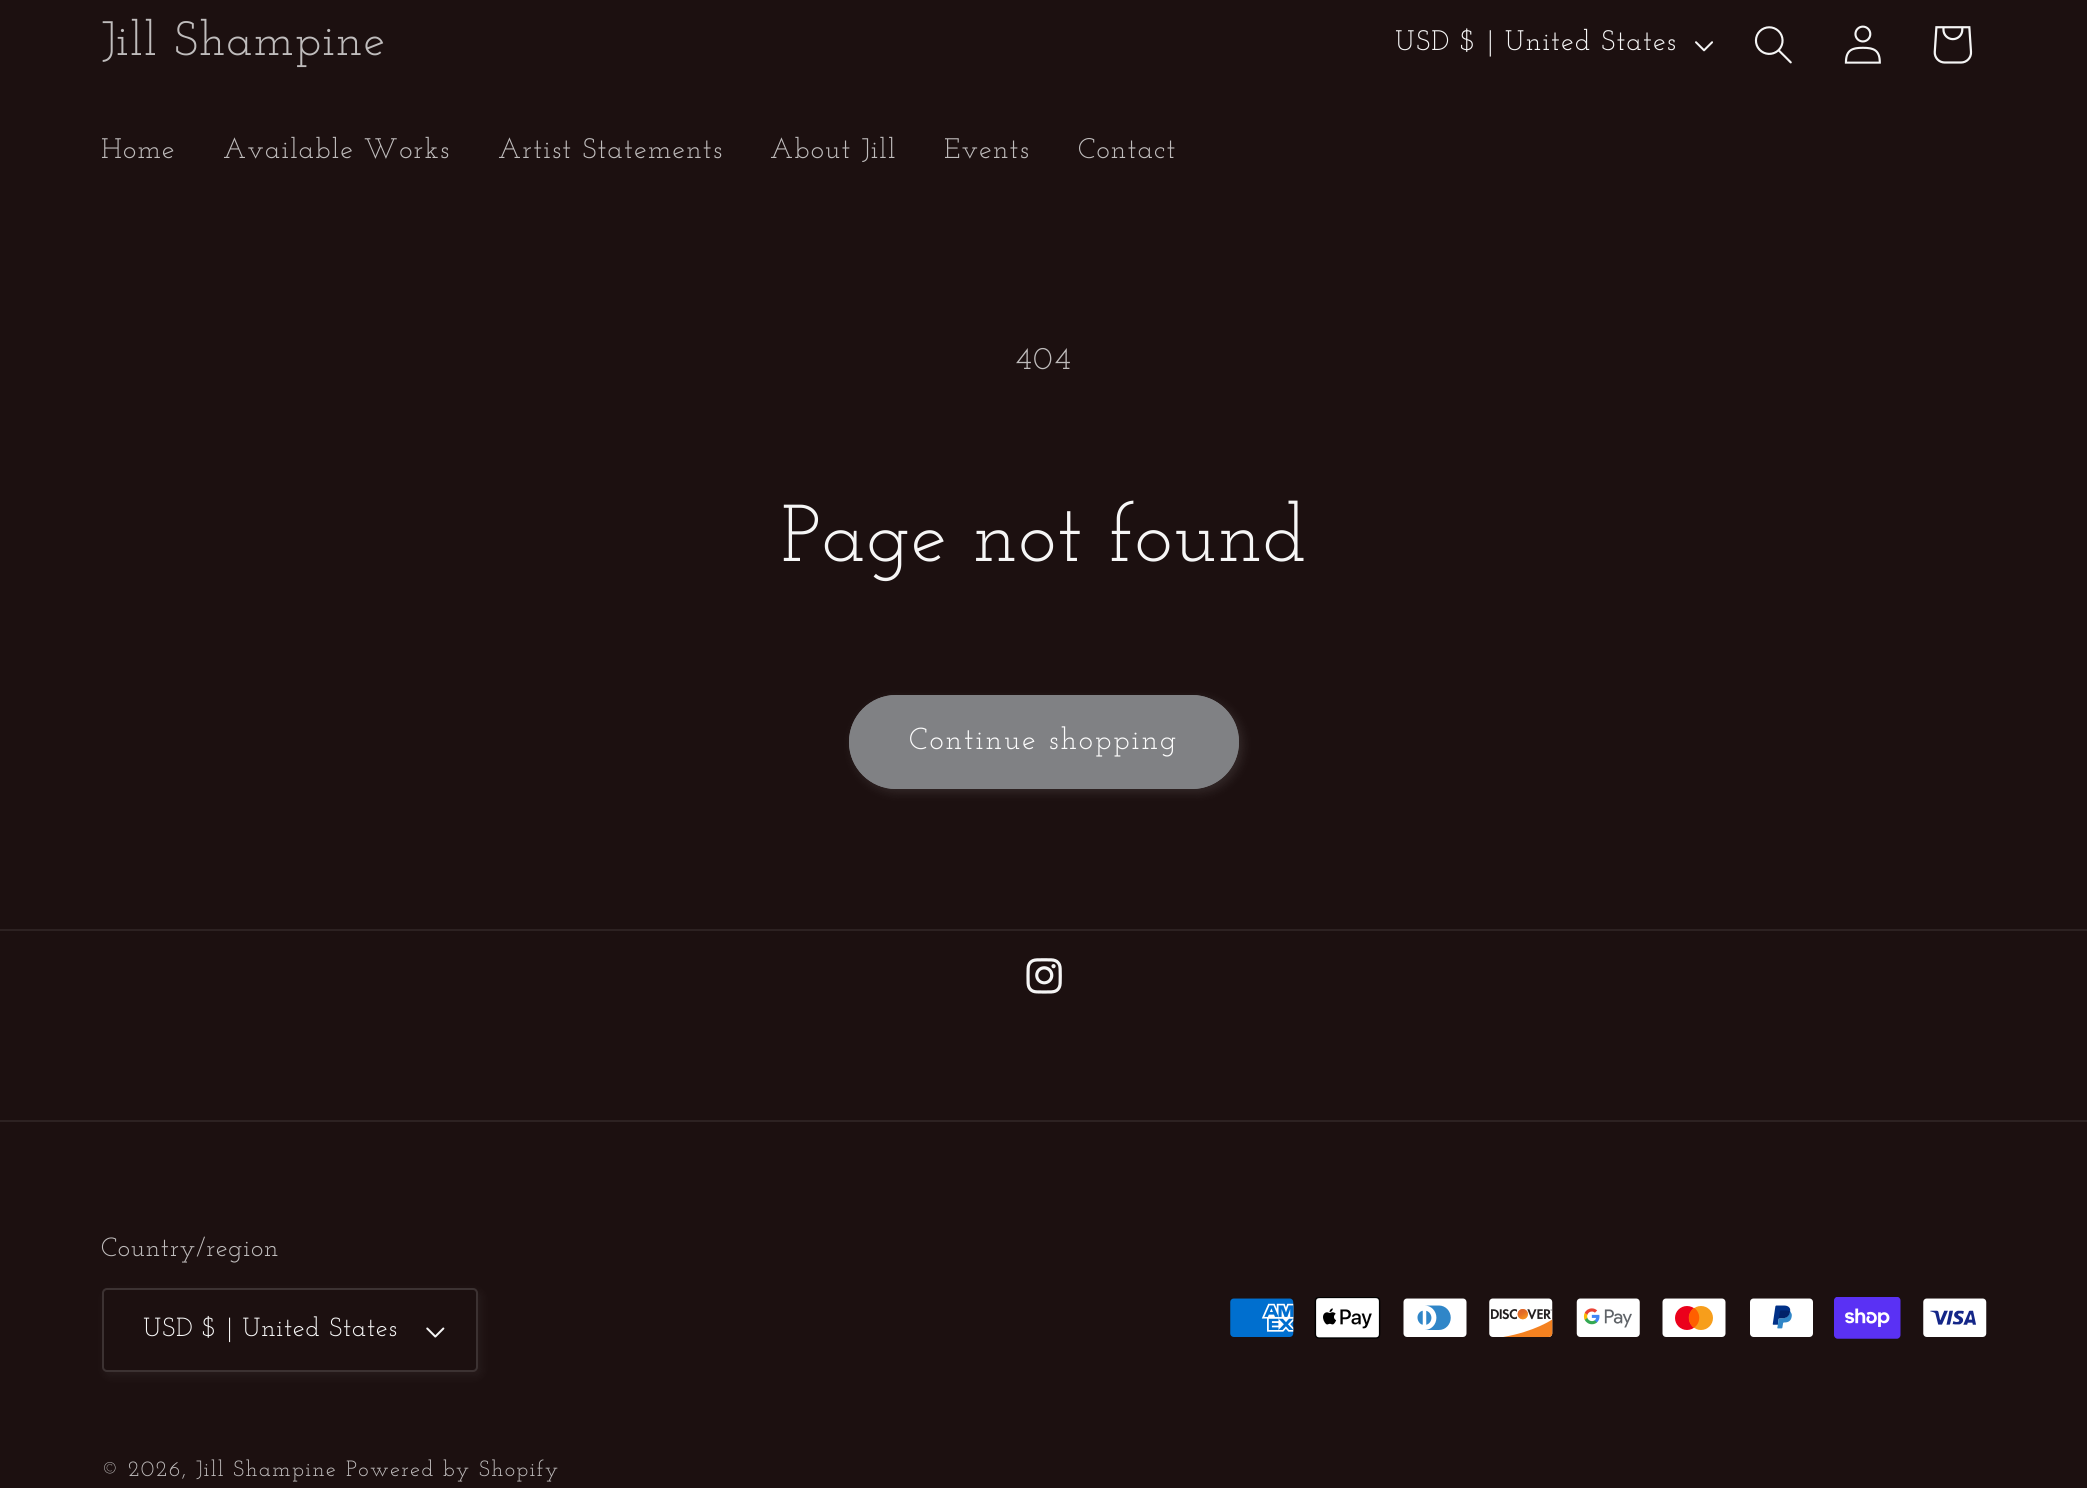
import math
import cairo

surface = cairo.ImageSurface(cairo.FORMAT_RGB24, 2087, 1488)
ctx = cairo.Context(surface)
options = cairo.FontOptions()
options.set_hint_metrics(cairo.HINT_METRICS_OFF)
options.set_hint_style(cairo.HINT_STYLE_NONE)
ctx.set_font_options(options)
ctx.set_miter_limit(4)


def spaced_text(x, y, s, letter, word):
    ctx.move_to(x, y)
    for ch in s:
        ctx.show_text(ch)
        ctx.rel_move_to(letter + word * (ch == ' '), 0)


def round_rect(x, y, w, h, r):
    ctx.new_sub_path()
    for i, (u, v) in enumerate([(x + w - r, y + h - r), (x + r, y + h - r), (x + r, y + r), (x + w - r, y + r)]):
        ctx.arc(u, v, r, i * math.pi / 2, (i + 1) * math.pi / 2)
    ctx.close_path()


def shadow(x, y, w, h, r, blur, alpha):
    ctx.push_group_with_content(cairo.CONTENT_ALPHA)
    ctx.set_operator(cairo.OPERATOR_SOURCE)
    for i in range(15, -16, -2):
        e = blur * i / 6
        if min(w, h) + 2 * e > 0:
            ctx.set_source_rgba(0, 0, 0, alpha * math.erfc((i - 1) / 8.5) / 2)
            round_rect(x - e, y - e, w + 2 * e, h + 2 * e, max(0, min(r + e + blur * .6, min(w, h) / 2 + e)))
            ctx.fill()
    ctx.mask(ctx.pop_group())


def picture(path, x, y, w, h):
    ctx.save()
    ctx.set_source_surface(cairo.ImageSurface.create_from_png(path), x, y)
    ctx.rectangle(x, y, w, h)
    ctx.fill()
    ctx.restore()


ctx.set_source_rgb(0.11, 0.063, 0.063)
ctx.paint()
ctx.select_font_face("Josefin Slab")
ctx.set_font_size(48.25)
ctx.set_source_rgb(0.749, 0.737, 0.737)
spaced_text(101, 55, "Jill Shampine", 1.25, 0)
ctx.set_font_size(28.25)
ctx.set_source_rgb(0.961, 0.961, 0.961)
spaced_text(1395, 50, "USD $ | United States", 1.25, 0)
picture("img1.png", 1695, 41, 18, 11)
picture("img2.png", 1754, 26, 38, 38)
picture("img3.png", 1844, 25, 37, 39)
picture("img4.png", 1933, 26, 40, 38)
ctx.set_source_rgb(0.749, 0.737, 0.737)
spaced_text(101, 158, "Home", 1.25, 0)
spaced_text(223, 158, "Available Works", 1.25, 0)
spaced_text(498, 158, "Artist Statements", 1.25, 0)
spaced_text(770, 158, "About Jill", 1.25, 0)
spaced_text(944, 158, "Events", 1.25, 0)
spaced_text(1078, 158, "Contact", 1.25, 0)
ctx.set_font_size(32)
spaced_text(1015, 369, "404", 1.25, 0)
ctx.set_font_size(80.5)
ctx.set_source_rgb(0.961, 0.961, 0.961)
spaced_text(781, 561, "Page not found", 1.25, 0)
ctx.set_source_rgb(0.961, 0.961, 0.961)
shadow(852, 698, 391, 95, 47.5, 4.5, 0.1)
ctx.set_source_rgb(0.502, 0.506, 0.518)
round_rect(849, 695, 390, 94, 47)
ctx.fill()
round_rect(850, 696, 388, 92, 46)
ctx.stroke()
ctx.set_font_size(30.25)
ctx.set_source_rgb(0.988, 0.988, 0.988)
spaced_text(909, 749, "Continue shopping", 2, 0)
ctx.set_source_rgb(0.176, 0.133, 0.133)
ctx.rectangle(0, 929, 2087, 2)
ctx.fill()
picture("img5.png", 1026, 958, 36, 36)
ctx.rectangle(0, 1120, 2087, 2)
ctx.fill()
ctx.set_font_size(26.25)
ctx.set_source_rgb(0.749, 0.737, 0.737)
spaced_text(101, 1256, "Country/region", 0.8, 0)
ctx.set_source_rgb(0.961, 0.961, 0.961)
shadow(105, 1292, 376, 84, 5, 4.5, 0.05)
ctx.set_source_rgb(0.11, 0.063, 0.063)
round_rect(102, 1288, 376, 84, 5)
ctx.fill()
picture("img6.png", 426, 1327, 19, 11)
round_rect(103, 1289, 374, 82, 4)
ctx.set_source_rgba(0.961, 0.961, 0.961, 0.15)
ctx.stroke()
ctx.set_source_rgb(0.961, 0.961, 0.961)
spaced_text(143, 1336, "USD $ | United States", 0.8, 0)
picture("img7.png", 1230, 1298, 64, 39)
picture("img8.png", 1314, 1297, 67, 42)
picture("img9.png", 1403, 1298, 64, 39)
picture("img10.png", 1489, 1298, 64, 39)
picture("img11.png", 1576, 1298, 64, 39)
picture("img12.png", 1662, 1298, 64, 39)
picture("img13.png", 1750, 1298, 63, 39)
picture("img14.png", 1834, 1297, 67, 42)
picture("img15.png", 1923, 1298, 64, 39)
ctx.set_font_size(22.1)
ctx.set_source_rgb(0.749, 0.737, 0.737)
spaced_text(101, 1476, "© 2026, Jill Shampine", 1.4, 0)
spaced_text(346, 1476, "Powered by Shopify", 1.4, 0)
surface.write_to_png("page.png")
